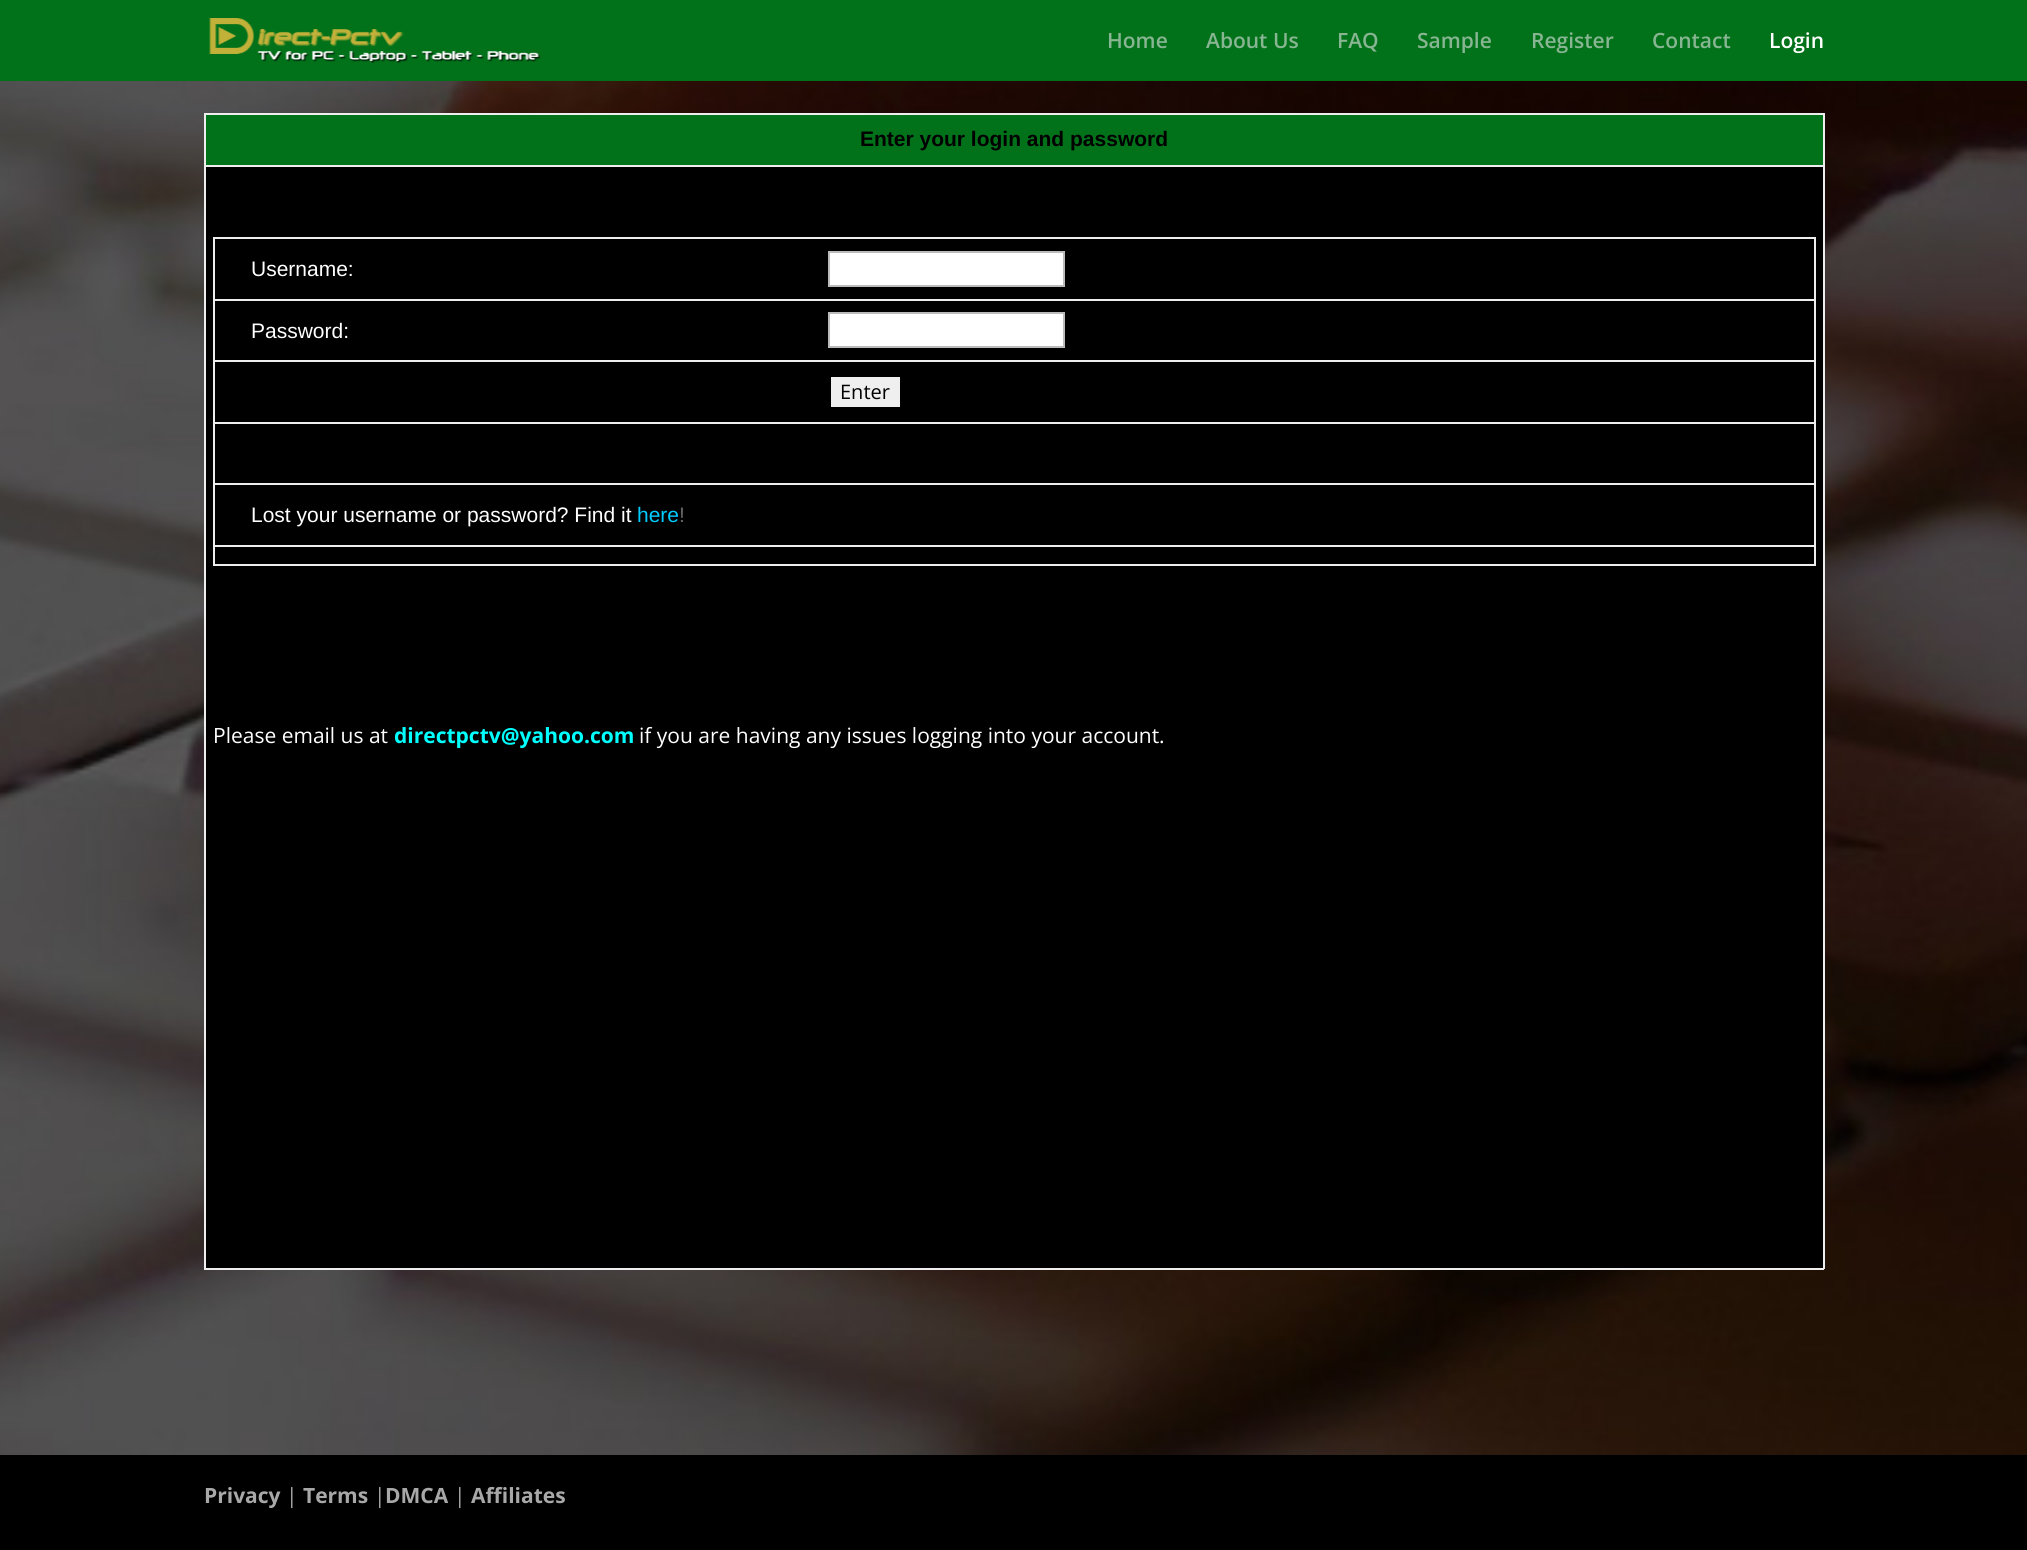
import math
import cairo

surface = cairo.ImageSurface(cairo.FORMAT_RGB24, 2027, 1550)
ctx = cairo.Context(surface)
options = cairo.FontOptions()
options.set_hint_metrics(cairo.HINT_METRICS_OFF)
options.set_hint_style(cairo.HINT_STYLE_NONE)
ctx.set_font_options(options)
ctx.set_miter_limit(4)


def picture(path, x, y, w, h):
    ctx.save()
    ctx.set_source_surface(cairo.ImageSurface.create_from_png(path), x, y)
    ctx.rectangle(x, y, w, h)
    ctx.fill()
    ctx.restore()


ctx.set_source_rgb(0, 0, 0)
ctx.paint()
ctx.set_source_rgb(0.008, 0.447, 0.102)
ctx.rectangle(0, 0, 2027, 81)
ctx.fill()
picture("img1.png", 209, 18, 332, 45)
ctx.select_font_face("Open Sans SemiBold")
ctx.set_font_size(21)
ctx.set_source_rgb(0.533, 0.71, 0.573)
ctx.move_to(1107, 48)
ctx.show_text("Home")
ctx.move_to(1206, 48)
ctx.show_text("About Us")
ctx.move_to(1337, 48)
ctx.show_text("FAQ")
ctx.move_to(1417, 48)
ctx.show_text("Sample")
ctx.move_to(1531, 48)
ctx.show_text("Register")
ctx.move_to(1652, 48)
ctx.show_text("Contact")
ctx.set_source_rgb(1, 1, 1)
ctx.move_to(1769, 48)
ctx.show_text("Login")
picture("img2.png", 0, 81, 2027, 1374)
ctx.set_source_rgb(0.933, 0.933, 0.933)
ctx.rectangle(204, 113, 1620, 2)
ctx.fill()
ctx.rectangle(1823, 113, 2, 1156)
ctx.fill()
ctx.rectangle(204, 1268, 1620, 2)
ctx.fill()
ctx.rectangle(204, 113, 2, 1156)
ctx.fill()
ctx.set_source_rgb(0.008, 0.447, 0.102)
ctx.rectangle(206, 115, 1617, 50)
ctx.fill()
ctx.select_font_face("Liberation Sans", cairo.FONT_SLANT_NORMAL, cairo.FONT_WEIGHT_BOLD)
ctx.set_source_rgb(0, 0, 0)
ctx.move_to(860, 146)
ctx.show_text("Enter your login and password")
ctx.rectangle(206, 167, 1617, 1101)
ctx.fill()
ctx.set_source_rgb(0.933, 0.933, 0.933)
ctx.rectangle(204, 165, 1620, 2)
ctx.fill()
ctx.rectangle(213, 237, 1602, 2)
ctx.fill()
ctx.rectangle(1814, 237, 2, 329)
ctx.fill()
ctx.rectangle(213, 564, 1602, 2)
ctx.fill()
ctx.rectangle(213, 237, 2, 329)
ctx.fill()
ctx.select_font_face("Liberation Sans")
ctx.set_source_rgb(1, 1, 1)
ctx.move_to(251, 276)
ctx.show_text("Username:")
ctx.rectangle(829, 252, 235, 34)
ctx.fill_preserve()
ctx.set_source_rgb(0.733, 0.733, 0.733)
ctx.stroke()
ctx.set_source_rgb(0.933, 0.933, 0.933)
ctx.rectangle(213, 299, 1602, 2)
ctx.fill()
ctx.set_source_rgb(1, 1, 1)
ctx.rectangle(829, 313, 235, 34)
ctx.fill_preserve()
ctx.set_source_rgb(0.733, 0.733, 0.733)
ctx.stroke()
ctx.set_source_rgb(1, 1, 1)
ctx.move_to(251, 338)
ctx.show_text("Password:")
ctx.set_source_rgb(0.933, 0.933, 0.933)
ctx.rectangle(213, 360, 1602, 2)
ctx.fill()
ctx.set_source_rgb(0.937, 0.937, 0.937)
ctx.rectangle(831, 377, 69, 30)
ctx.fill()
ctx.select_font_face("Open Sans")
ctx.set_font_size(20)
ctx.set_source_rgb(0, 0, 0)
ctx.move_to(840, 399)
ctx.show_text("Enter")
ctx.set_source_rgb(0.933, 0.933, 0.933)
ctx.rectangle(213, 422, 1602, 2)
ctx.fill()
ctx.rectangle(213, 483, 1602, 2)
ctx.fill()
ctx.select_font_face("Liberation Sans")
ctx.set_font_size(21)
ctx.set_source_rgb(1, 1, 1)
ctx.move_to(251, 522)
ctx.show_text("Lost your username or password? Find it")
ctx.set_source_rgb(0, 0.8, 1)
ctx.move_to(637, 522)
ctx.show_text("here")
ctx.set_source_rgb(0.4, 0.4, 0.4)
ctx.move_to(679, 522)
ctx.show_text("!")
ctx.set_source_rgb(0.933, 0.933, 0.933)
ctx.rectangle(213, 545, 1602, 2)
ctx.fill()
ctx.select_font_face("Open Sans")
ctx.set_source_rgb(1, 1, 1)
ctx.move_to(213, 743)
ctx.show_text("Please email us at")
ctx.select_font_face("Open Sans", cairo.FONT_SLANT_NORMAL, cairo.FONT_WEIGHT_BOLD)
ctx.set_source_rgb(0, 1, 1)
ctx.move_to(394, 743)
ctx.show_text("directpctv@yahoo.com")
ctx.select_font_face("Open Sans")
ctx.set_source_rgb(1, 1, 1)
ctx.move_to(639, 743)
ctx.show_text("if you are having any issues logging into your account.")
ctx.select_font_face("Open Sans", cairo.FONT_SLANT_NORMAL, cairo.FONT_WEIGHT_BOLD)
ctx.set_source_rgb(0.659, 0.659, 0.659)
ctx.move_to(204, 1503)
ctx.show_text("Privacy")
ctx.select_font_face("Open Sans")
ctx.move_to(286, 1503)
ctx.show_text("|")
ctx.select_font_face("Open Sans", cairo.FONT_SLANT_NORMAL, cairo.FONT_WEIGHT_BOLD)
ctx.move_to(303, 1503)
ctx.show_text("Terms")
ctx.select_font_face("Open Sans")
ctx.move_to(374, 1503)
ctx.show_text("|")
ctx.select_font_face("Open Sans", cairo.FONT_SLANT_NORMAL, cairo.FONT_WEIGHT_BOLD)
ctx.move_to(385, 1503)
ctx.show_text("DMCA")
ctx.select_font_face("Open Sans")
ctx.move_to(454, 1503)
ctx.show_text("|")
ctx.select_font_face("Open Sans", cairo.FONT_SLANT_NORMAL, cairo.FONT_WEIGHT_BOLD)
ctx.move_to(471, 1503)
ctx.show_text("Affiliates")
surface.write_to_png("page.png")
